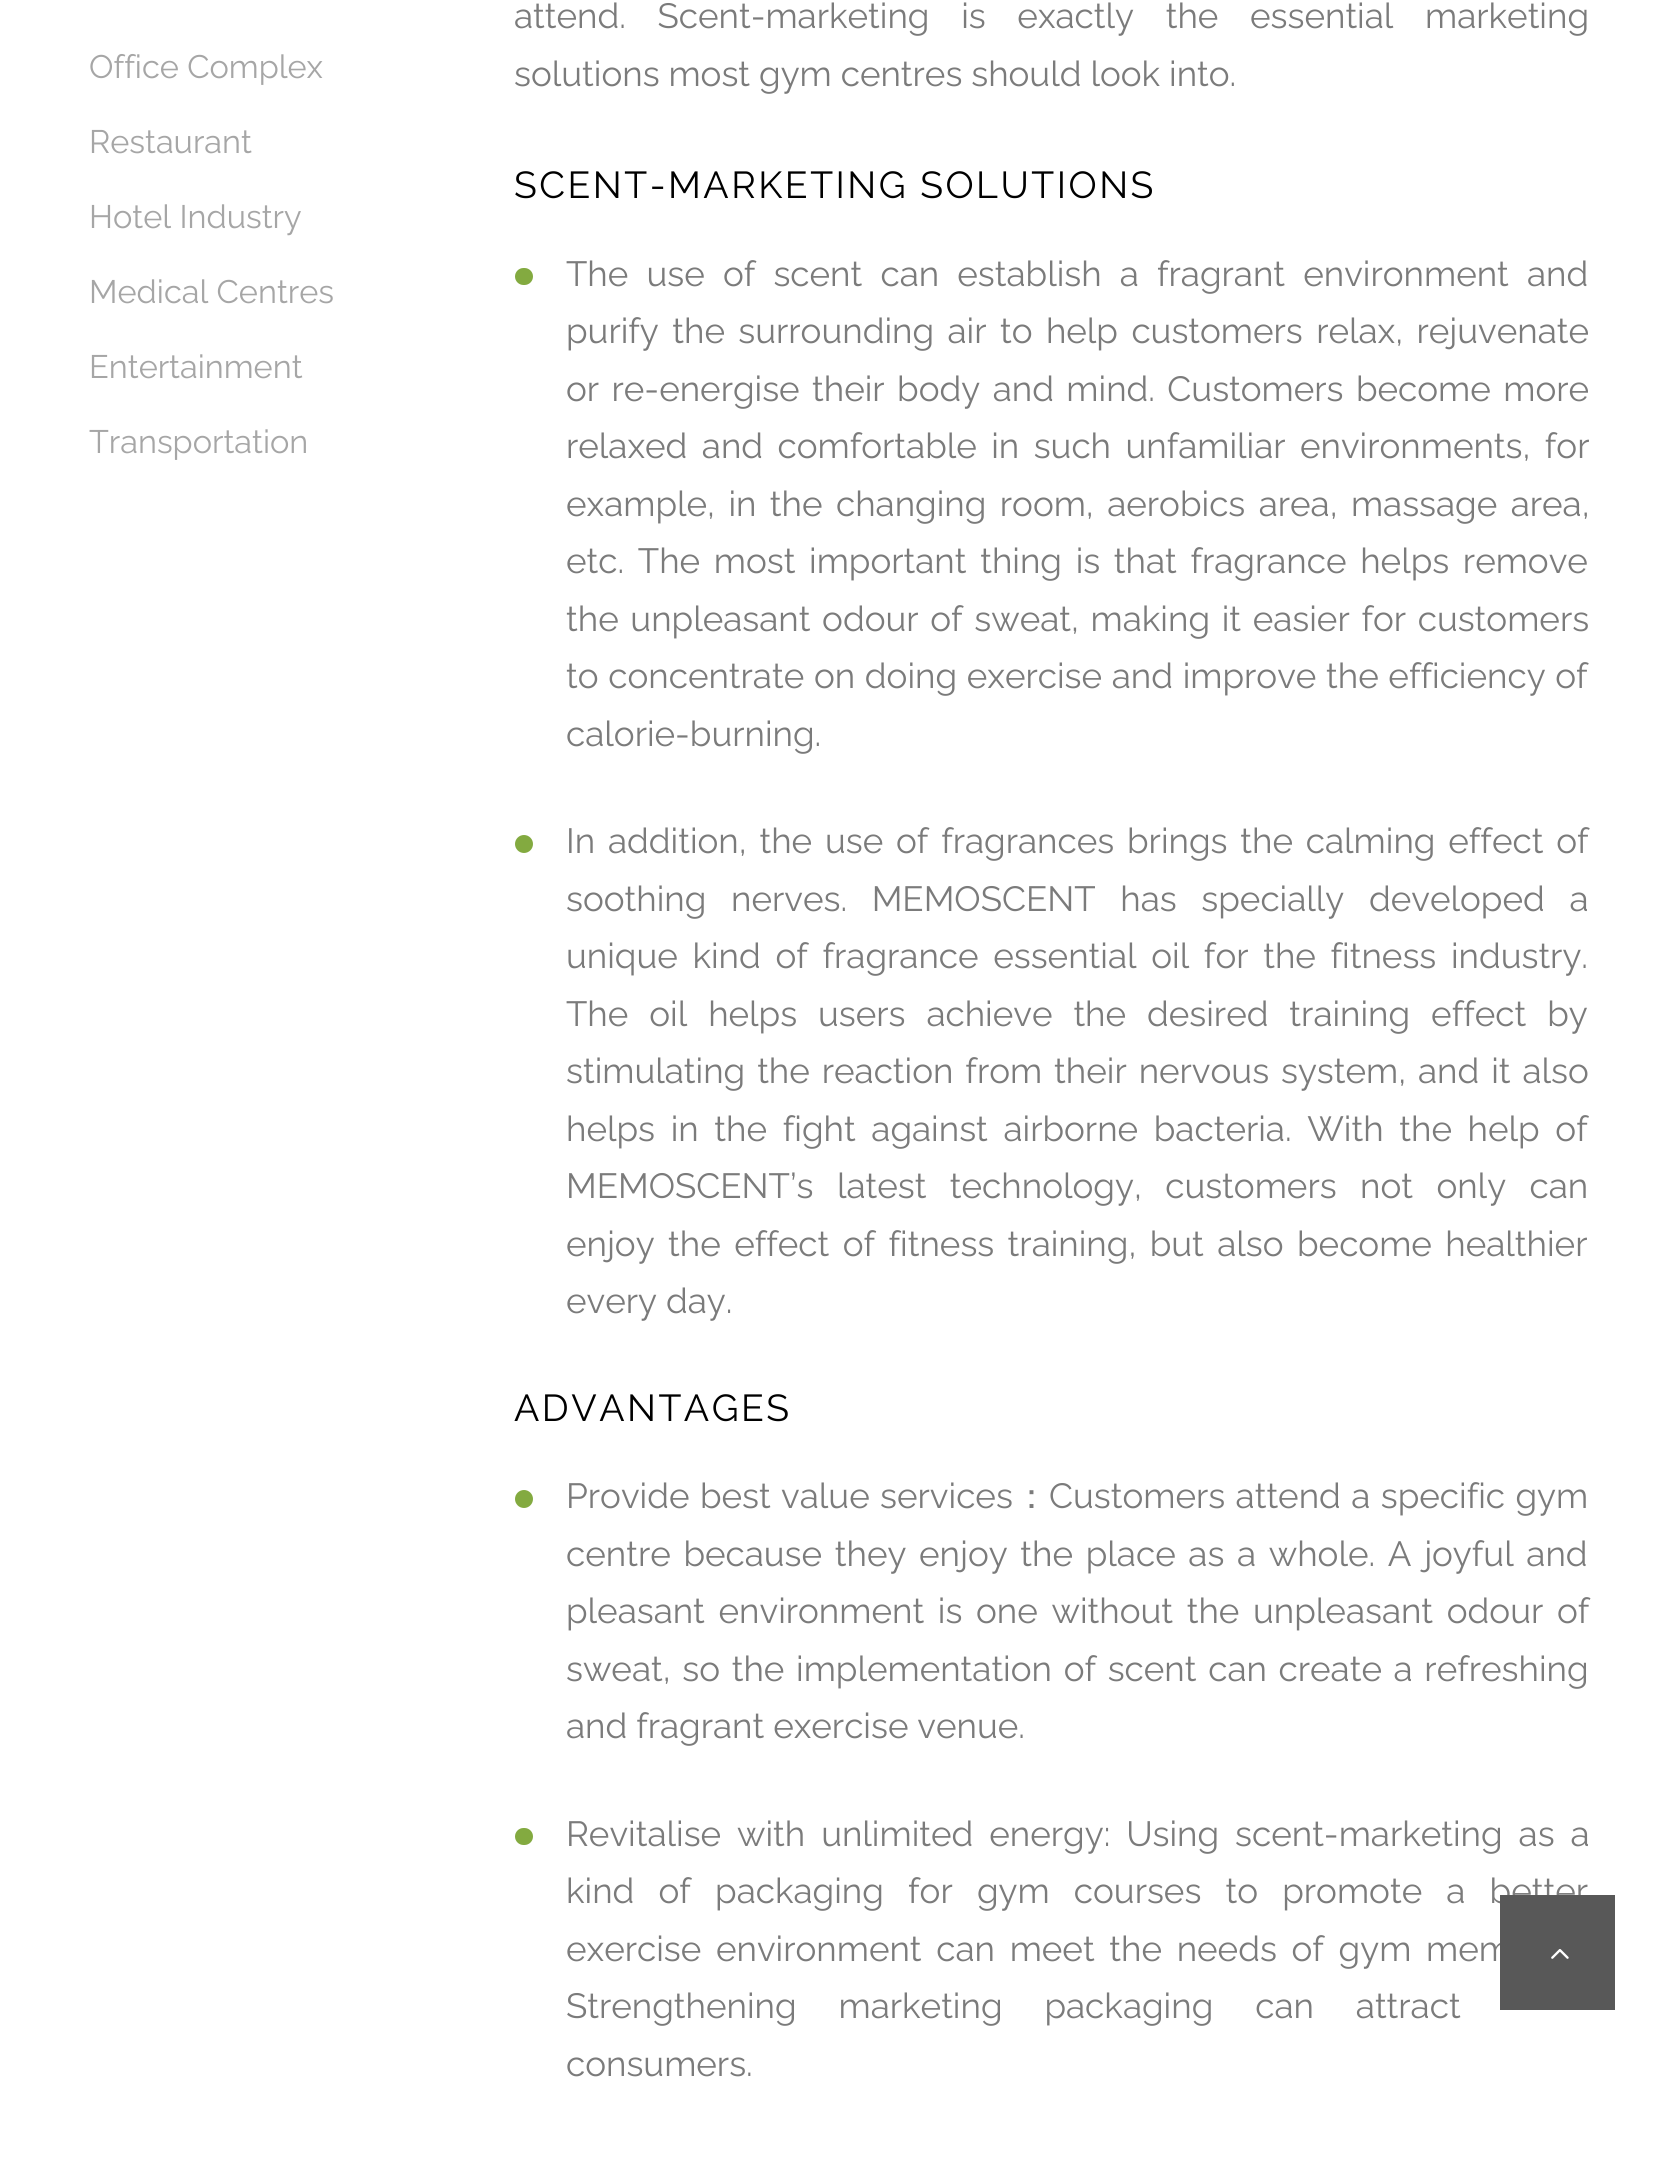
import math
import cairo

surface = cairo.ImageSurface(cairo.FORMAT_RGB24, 1676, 2171)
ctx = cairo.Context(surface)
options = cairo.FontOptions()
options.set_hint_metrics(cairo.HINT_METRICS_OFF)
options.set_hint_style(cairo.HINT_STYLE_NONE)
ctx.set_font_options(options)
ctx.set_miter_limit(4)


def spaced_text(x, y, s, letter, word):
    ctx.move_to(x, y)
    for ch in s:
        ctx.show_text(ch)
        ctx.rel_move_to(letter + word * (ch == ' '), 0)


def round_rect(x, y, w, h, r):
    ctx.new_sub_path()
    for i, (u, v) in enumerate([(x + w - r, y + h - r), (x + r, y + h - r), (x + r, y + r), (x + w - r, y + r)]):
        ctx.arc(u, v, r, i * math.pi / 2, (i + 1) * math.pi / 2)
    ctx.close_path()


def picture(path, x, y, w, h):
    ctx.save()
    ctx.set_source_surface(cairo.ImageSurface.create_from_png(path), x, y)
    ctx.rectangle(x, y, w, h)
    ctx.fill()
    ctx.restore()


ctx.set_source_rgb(1, 1, 1)
ctx.paint()
ctx.select_font_face("Raleway")
ctx.set_font_size(32.5)
ctx.set_source_rgb(0.651, 0.651, 0.651)
ctx.move_to(89, 78)
ctx.show_text("Office Complex")
ctx.move_to(89, 153)
ctx.show_text("Restaurant")
ctx.move_to(89, 228)
ctx.show_text("Hotel Industry")
ctx.move_to(89, 303)
ctx.show_text("Medical Centres")
ctx.move_to(89, 378)
ctx.show_text("Entertainment")
ctx.move_to(89, 453)
ctx.show_text("Transportation")
ctx.set_font_size(35)
ctx.set_source_rgb(0.482, 0.482, 0.482)
spaced_text(514, 28, "attend. Scent-marketing is exactly the essential marketing", 0, 22.75)
ctx.move_to(514, 86)
ctx.show_text("solutions most gym centres should look into.")
ctx.set_font_size(37.5)
ctx.set_source_rgb(0, 0, 0)
spaced_text(514, 198, "SCENT-MARKETING SOLUTIONS", 2.5, 0)
ctx.set_source_rgb(0.514, 0.667, 0.251)
round_rect(515, 268, 18, 17, 8.5)
ctx.fill()
ctx.set_font_size(35)
ctx.set_source_rgb(0.482, 0.482, 0.482)
spaced_text(566, 286, "The use of scent can establish a fragrant environment and", 0, 9.25)
spaced_text(566, 343, "purify the surrounding air to help customers relax, rejuvenate", 0, 4.5)
spaced_text(566, 401, "or re-energise their body and mind. Customers become more", 0, 3.5)
spaced_text(566, 458, "relaxed and comfortable in such unfamiliar environments, for", 0, 5.5)
spaced_text(566, 516, "example, in the changing room, aerobics area, massage area,", 0, 4.5)
spaced_text(566, 573, "etc. The most important thing is that fragrance helps remove", 0, 4.75)
spaced_text(566, 631, "the unpleasant odour of sweat, making it easier for customers", 0, 2.75)
spaced_text(566, 688, "to concentrate on doing exercise and improve the efficiency of", 0, 0.75)
ctx.move_to(566, 746)
ctx.show_text("calorie-burning.")
ctx.set_source_rgb(0.514, 0.667, 0.251)
ctx.new_path()
ctx.arc(524, 844, 9, 0, 2 * math.pi)
ctx.fill()
ctx.set_source_rgb(0.482, 0.482, 0.482)
spaced_text(566, 853, "In addition, the use of fragrances brings the calming effect of", 0, 3.9)
spaced_text(566, 911, "soothing nerves. MEMOSCENT has specially developed a", 0, 15.75)
spaced_text(566, 968, "unique kind of fragrance essential oil for the fitness industry.", 0, 5.75)
spaced_text(566, 1026, "The oil helps users achieve the desired training effect by", 0, 12)
spaced_text(566, 1083, "stimulating the reaction from their nervous system, and it also", 0, 3)
spaced_text(566, 1141, "helps in the fight against airborne bacteria. With the help of", 0, 6.75)
spaced_text(566, 1198, "MEMOSCENT’s latest technology, customers not only can", 0, 14.5)
spaced_text(566, 1256, "enjoy the effect of fitness training, but also become healthier", 0, 4.5)
ctx.move_to(566, 1313)
ctx.show_text("every day.")
ctx.set_font_size(37.5)
ctx.set_source_rgb(0, 0, 0)
spaced_text(514, 1421, "ADVANTAGES", 2.5, 0)
ctx.set_source_rgb(0.514, 0.667, 0.251)
ctx.new_path()
ctx.arc(524, 1499, 9, 0, 2 * math.pi)
ctx.fill()
ctx.set_font_size(35)
ctx.set_source_rgb(0.482, 0.482, 0.482)
spaced_text(566, 1508, "Provide best value services", 0, 1.5)
ctx.select_font_face("WenQuanYi Zen Hei Medium")
ctx.move_to(1014, 1508)
ctx.show_text("：")
ctx.select_font_face("Raleway")
spaced_text(1049, 1508, "Customers attend a specific gym", 0, 1.5)
spaced_text(566, 1566, "centre because they enjoy the place as a whole. A joyful and", 0, 3.75)
spaced_text(566, 1623, "pleasant environment is one without the unpleasant odour of", 0, 4.75)
spaced_text(566, 1681, "sweat, so the implementation of scent can create a refreshing", 0, 2.75)
ctx.move_to(566, 1738)
ctx.show_text("and fragrant exercise venue.")
ctx.set_source_rgb(0.514, 0.667, 0.251)
round_rect(515, 1828, 18, 17, 8.5)
ctx.fill()
ctx.set_source_rgb(0.482, 0.482, 0.482)
spaced_text(566, 1846, "Revitalise with unlimited energy: Using scent-marketing as a", 0, 7)
spaced_text(566, 1903, "kind of packaging for gym courses to promote a better", 0, 15.25)
spaced_text(566, 1961, "exercise environment can meet the needs of gym mem", 0, 5.75)
spaced_text(566, 2018, "Strengthening marketing packaging can attract", 0, 33)
ctx.move_to(566, 2076)
ctx.show_text("consumers.")
ctx.set_source_rgb(0.345, 0.345, 0.345)
ctx.rectangle(1500, 1895, 115, 115)
ctx.fill()
picture("img1.png", 1551, 1949, 18, 10)
surface.write_to_png("page.png")
